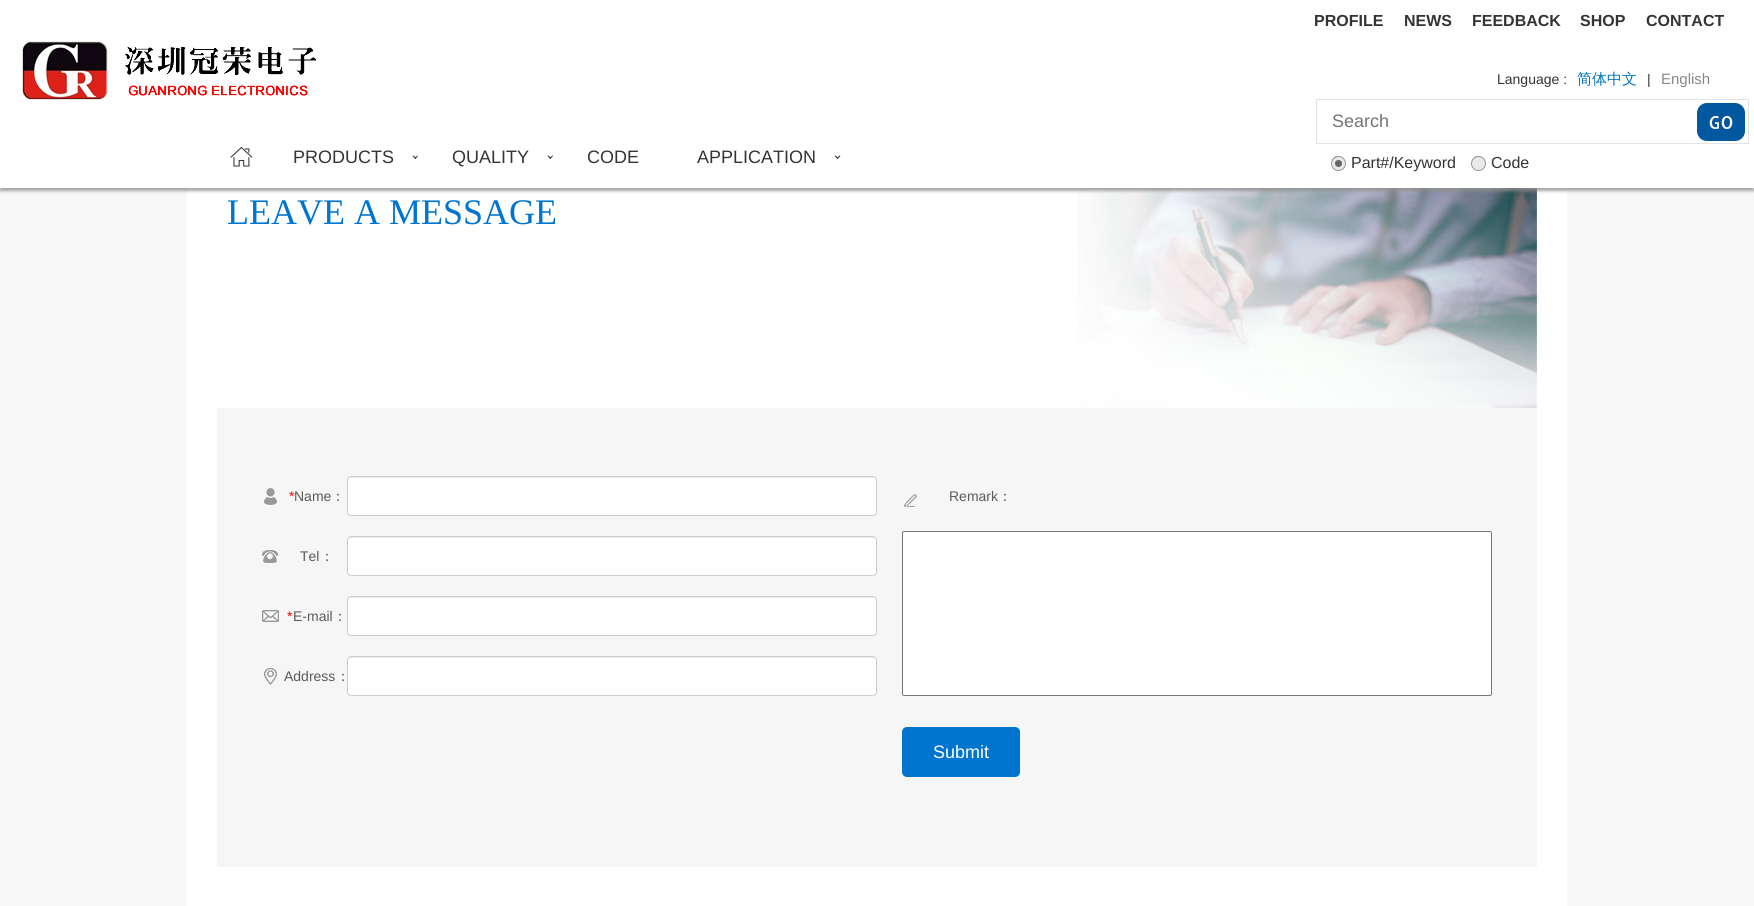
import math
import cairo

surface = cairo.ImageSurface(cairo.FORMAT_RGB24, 1754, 906)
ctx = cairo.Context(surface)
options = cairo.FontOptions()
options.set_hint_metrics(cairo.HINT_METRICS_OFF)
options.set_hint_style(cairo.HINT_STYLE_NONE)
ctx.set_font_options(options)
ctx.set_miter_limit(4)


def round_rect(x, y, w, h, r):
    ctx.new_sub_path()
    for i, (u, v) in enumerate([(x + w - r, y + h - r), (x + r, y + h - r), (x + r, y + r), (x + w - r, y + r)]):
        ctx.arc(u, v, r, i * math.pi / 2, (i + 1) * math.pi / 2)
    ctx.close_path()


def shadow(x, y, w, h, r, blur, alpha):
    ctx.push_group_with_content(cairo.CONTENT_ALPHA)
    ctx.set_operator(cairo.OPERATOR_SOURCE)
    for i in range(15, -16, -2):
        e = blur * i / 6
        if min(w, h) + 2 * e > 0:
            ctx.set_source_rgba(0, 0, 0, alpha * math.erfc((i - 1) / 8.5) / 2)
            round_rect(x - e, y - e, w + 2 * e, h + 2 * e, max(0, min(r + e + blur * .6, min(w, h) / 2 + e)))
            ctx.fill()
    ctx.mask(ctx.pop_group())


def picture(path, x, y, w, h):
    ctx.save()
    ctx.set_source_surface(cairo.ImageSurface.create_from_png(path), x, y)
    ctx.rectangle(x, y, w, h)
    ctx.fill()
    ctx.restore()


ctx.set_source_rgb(0.969, 0.969, 0.969)
ctx.paint()
ctx.set_source_rgb(1, 1, 1)
ctx.rectangle(187, 188, 1380, 718)
ctx.fill()
picture("img4.png", 1077, 188, 460, 220)
ctx.set_source_rgb(0.569, 0.561, 0.561)
shadow(0, 3, 1754, 188, 0, 1.5, 0.8)
ctx.set_source_rgb(1, 1, 1)
ctx.rectangle(0, 0, 1754, 188)
ctx.fill()
picture("img1.png", 22, 41, 294, 59)
picture("img2.png", 230, 146, 23, 21)
ctx.select_font_face("Liberation Sans")
ctx.set_font_size(18)
ctx.set_source_rgb(0.204, 0.204, 0.204)
ctx.move_to(293, 163)
ctx.show_text("PRODUCTS")
ctx.set_source_rgb(0.2, 0.2, 0.2)
ctx.new_path()
ctx.move_to(417.5, 155.5)
ctx.line_to(418, 156)
ctx.line_to(415.5, 159)
ctx.line_to(414.5, 158)
ctx.close_path()
ctx.fill()
ctx.new_path()
ctx.move_to(413.5, 155.5)
ctx.line_to(416, 158)
ctx.line_to(415.5, 159)
ctx.line_to(412.5, 156)
ctx.close_path()
ctx.fill()
ctx.set_source_rgb(0.204, 0.204, 0.204)
ctx.move_to(452, 163)
ctx.show_text("QUALITY")
ctx.set_source_rgb(0.2, 0.2, 0.2)
ctx.new_path()
ctx.move_to(552.5, 155.5)
ctx.line_to(553, 156)
ctx.line_to(550.5, 159)
ctx.line_to(549.5, 158)
ctx.close_path()
ctx.fill()
ctx.new_path()
ctx.move_to(548.5, 155.5)
ctx.line_to(551, 158)
ctx.line_to(550.5, 159)
ctx.line_to(547.5, 156)
ctx.close_path()
ctx.fill()
ctx.set_source_rgb(0.204, 0.204, 0.204)
ctx.move_to(587, 163)
ctx.show_text("CODE")
ctx.move_to(697, 163)
ctx.show_text("APPLICATION")
ctx.set_source_rgb(0.2, 0.2, 0.2)
ctx.new_path()
ctx.move_to(839.5, 155.5)
ctx.line_to(840.5, 156)
ctx.line_to(837.5, 159)
ctx.line_to(836.5, 158)
ctx.close_path()
ctx.fill()
ctx.new_path()
ctx.move_to(835.5, 155.5)
ctx.line_to(838, 158)
ctx.line_to(837.5, 159)
ctx.line_to(834.5, 156)
ctx.close_path()
ctx.fill()
ctx.select_font_face("Liberation Sans", cairo.FONT_SLANT_NORMAL, cairo.FONT_WEIGHT_BOLD)
ctx.set_font_size(16)
ctx.set_source_rgb(0.204, 0.204, 0.204)
ctx.move_to(1314, 26)
ctx.show_text("PROFILE")
ctx.move_to(1404, 26)
ctx.show_text("NEWS")
ctx.move_to(1472, 26)
ctx.show_text("FEEDBACK")
ctx.move_to(1580, 26)
ctx.show_text("SHOP")
ctx.move_to(1646, 26)
ctx.show_text("CONTACT")
ctx.select_font_face("Liberation Sans")
ctx.set_font_size(14)
ctx.move_to(1497, 84)
ctx.show_text("Language :")
ctx.select_font_face("WenQuanYi Zen Hei Medium")
ctx.set_font_size(15)
ctx.set_source_rgb(0, 0.459, 0.757)
ctx.move_to(1577, 84)
ctx.show_text("简体中文")
ctx.select_font_face("Liberation Sans")
ctx.set_font_size(14)
ctx.set_source_rgb(0.204, 0.204, 0.204)
ctx.move_to(1647, 84)
ctx.show_text("|")
ctx.set_font_size(15)
ctx.set_source_rgb(0.533, 0.533, 0.533)
ctx.move_to(1661, 84)
ctx.show_text("English")
ctx.rectangle(1316.5, 99.5, 397, 44)
ctx.set_source_rgb(0.89, 0.89, 0.89)
ctx.set_line_width(1)
ctx.stroke()
ctx.set_font_size(18)
ctx.set_source_rgb(0.459, 0.459, 0.459)
ctx.move_to(1332, 127)
ctx.show_text("Search")
ctx.set_source_rgb(1, 1, 1)
ctx.rectangle(1713, 100, 1, 43)
ctx.fill()
picture("img3.png", 1697, 103, 48, 38)
ctx.set_source_rgb(0.89, 0.89, 0.89)
ctx.rectangle(1714, 99, 35, 1)
ctx.fill()
ctx.rectangle(1748, 99, 1, 45)
ctx.fill()
ctx.rectangle(1714, 143, 35, 1)
ctx.fill()
ctx.arc(1338, 162, 5.5, 0, 2 * math.pi)
ctx.set_source_rgb(0, 0.459, 1)
ctx.stroke()
ctx.set_source_rgb(0.914, 0.914, 0.914)
ctx.arc(1338.5, 163.5, 7, 0, 2 * math.pi)
ctx.fill_preserve()
ctx.set_source_rgb(0.6, 0.6, 0.6)
ctx.stroke()
ctx.set_source_rgb(0.4, 0.4, 0.4)
ctx.arc(1338.5, 163.5, 3.5, 0, 2 * math.pi)
ctx.fill()
ctx.set_font_size(16)
ctx.set_source_rgb(0.204, 0.204, 0.204)
ctx.move_to(1351, 168)
ctx.show_text("Part#/Keyword")
ctx.new_path()
ctx.arc(1478, 162, 5.5, 0, 2 * math.pi)
ctx.set_source_rgb(0.463, 0.463, 0.463)
ctx.stroke()
ctx.set_source_rgb(0.914, 0.914, 0.914)
ctx.arc(1478.5, 163.5, 7, 0, 2 * math.pi)
ctx.fill_preserve()
ctx.set_source_rgb(0.6, 0.6, 0.6)
ctx.stroke()
ctx.set_source_rgb(0.204, 0.204, 0.204)
ctx.move_to(1491, 168)
ctx.show_text("Code")
ctx.select_font_face("Liberation Serif")
ctx.set_font_size(36)
ctx.set_source_rgb(0, 0.459, 0.812)
ctx.move_to(227, 224)
ctx.show_text("LEAVE A MESSAGE")
ctx.set_source_rgb(0.961, 0.961, 0.961)
ctx.rectangle(217, 408, 1320, 459)
ctx.fill()
picture("img5.png", 264, 488, 13, 17)
ctx.select_font_face("Liberation Sans")
ctx.set_font_size(14)
ctx.set_source_rgb(1, 0, 0)
ctx.move_to(289, 501)
ctx.show_text("*")
ctx.set_source_rgb(0.357, 0.357, 0.357)
ctx.move_to(294, 501)
ctx.show_text("Name")
ctx.select_font_face("WenQuanYi Zen Hei Medium")
ctx.move_to(331, 501)
ctx.show_text("：")
ctx.set_source_rgb(1, 1, 1)
round_rect(347, 476, 530, 40, 4)
ctx.fill()
ctx.set_source_rgb(0.925, 0.925, 0.925)
ctx.new_path()
ctx.move_to(351, 478)
ctx.line_to(873, 478)
ctx.curve_to(875, 478, 876, 479, 876, 481)
ctx.line_to(875, 478)
ctx.line_to(873, 477)
ctx.line_to(351, 477)
ctx.curve_to(349, 477, 348, 479, 348, 481)
ctx.curve_to(348, 479, 349, 478, 351, 478)
ctx.close_path()
ctx.fill()
round_rect(347.5, 476.5, 529, 39, 3.5)
ctx.set_source_rgb(0.8, 0.8, 0.8)
ctx.stroke()
picture("img6.png", 262, 550, 16, 13)
ctx.select_font_face("Liberation Sans")
ctx.set_source_rgb(0.357, 0.357, 0.357)
ctx.move_to(300, 561)
ctx.show_text("Tel")
ctx.select_font_face("WenQuanYi Zen Hei Medium")
ctx.move_to(320, 561)
ctx.show_text("：")
ctx.set_source_rgb(1, 1, 1)
round_rect(347, 536, 530, 40, 4)
ctx.fill()
ctx.set_source_rgb(0.925, 0.925, 0.925)
ctx.new_path()
ctx.move_to(351, 538)
ctx.line_to(873, 538)
ctx.curve_to(875, 538, 876, 539, 876, 541)
ctx.line_to(875, 538)
ctx.line_to(873, 537)
ctx.line_to(351, 537)
ctx.curve_to(349, 537, 348, 539, 348, 541)
ctx.curve_to(348, 539, 349, 538, 351, 538)
ctx.close_path()
ctx.fill()
round_rect(347.5, 536.5, 529, 39, 3.5)
ctx.set_source_rgb(0.8, 0.8, 0.8)
ctx.stroke()
picture("img7.png", 262, 610, 17, 12)
ctx.select_font_face("Liberation Sans")
ctx.set_source_rgb(1, 0, 0)
ctx.move_to(287, 621)
ctx.show_text("*")
ctx.set_source_rgb(0.357, 0.357, 0.357)
ctx.move_to(293, 621)
ctx.show_text("E-mail")
ctx.select_font_face("WenQuanYi Zen Hei Medium")
ctx.move_to(333, 621)
ctx.show_text("：")
ctx.set_source_rgb(1, 1, 1)
round_rect(347, 596, 530, 40, 4)
ctx.fill()
ctx.set_source_rgb(0.925, 0.925, 0.925)
ctx.new_path()
ctx.move_to(351, 598)
ctx.line_to(873, 598)
ctx.curve_to(875, 598, 876, 599, 876, 601)
ctx.line_to(875, 598)
ctx.line_to(873, 597)
ctx.line_to(351, 597)
ctx.curve_to(349, 597, 348, 599, 348, 601)
ctx.curve_to(348, 599, 349, 598, 351, 598)
ctx.close_path()
ctx.fill()
round_rect(347.5, 596.5, 529, 39, 3.5)
ctx.set_source_rgb(0.8, 0.8, 0.8)
ctx.stroke()
picture("img8.png", 264, 668, 13, 17)
ctx.select_font_face("Liberation Sans")
ctx.set_source_rgb(0.357, 0.357, 0.357)
ctx.move_to(284, 681)
ctx.show_text("Address")
ctx.select_font_face("WenQuanYi Zen Hei Medium")
ctx.move_to(336, 681)
ctx.show_text("：")
ctx.set_source_rgb(1, 1, 1)
round_rect(347, 656, 530, 40, 4)
ctx.fill()
ctx.set_source_rgb(0.925, 0.925, 0.925)
ctx.new_path()
ctx.move_to(351, 658)
ctx.line_to(873, 658)
ctx.curve_to(875, 658, 876, 659, 876, 661)
ctx.line_to(875, 658)
ctx.line_to(873, 657)
ctx.line_to(351, 657)
ctx.curve_to(349, 657, 348, 659, 348, 661)
ctx.curve_to(348, 659, 349, 658, 351, 658)
ctx.close_path()
ctx.fill()
round_rect(347.5, 656.5, 529, 39, 3.5)
ctx.set_source_rgb(0.8, 0.8, 0.8)
ctx.stroke()
picture("img9.png", 904, 494, 13, 13)
ctx.select_font_face("Liberation Sans")
ctx.set_source_rgb(0.357, 0.357, 0.357)
ctx.move_to(949, 501)
ctx.show_text("Remark")
ctx.select_font_face("WenQuanYi Zen Hei Medium")
ctx.move_to(998, 501)
ctx.show_text("：")
ctx.set_source_rgb(1, 1, 1)
round_rect(902.5, 531.5, 589, 164, 1.5)
ctx.fill_preserve()
ctx.set_source_rgb(0.463, 0.463, 0.463)
ctx.stroke()
ctx.set_source_rgb(0, 0.459, 0.812)
round_rect(902, 727, 118, 50, 5)
ctx.fill()
ctx.select_font_face("Liberation Sans")
ctx.set_font_size(18)
ctx.set_source_rgb(1, 1, 1)
ctx.move_to(933, 758)
ctx.show_text("Submit")
surface.write_to_png("page.png")
